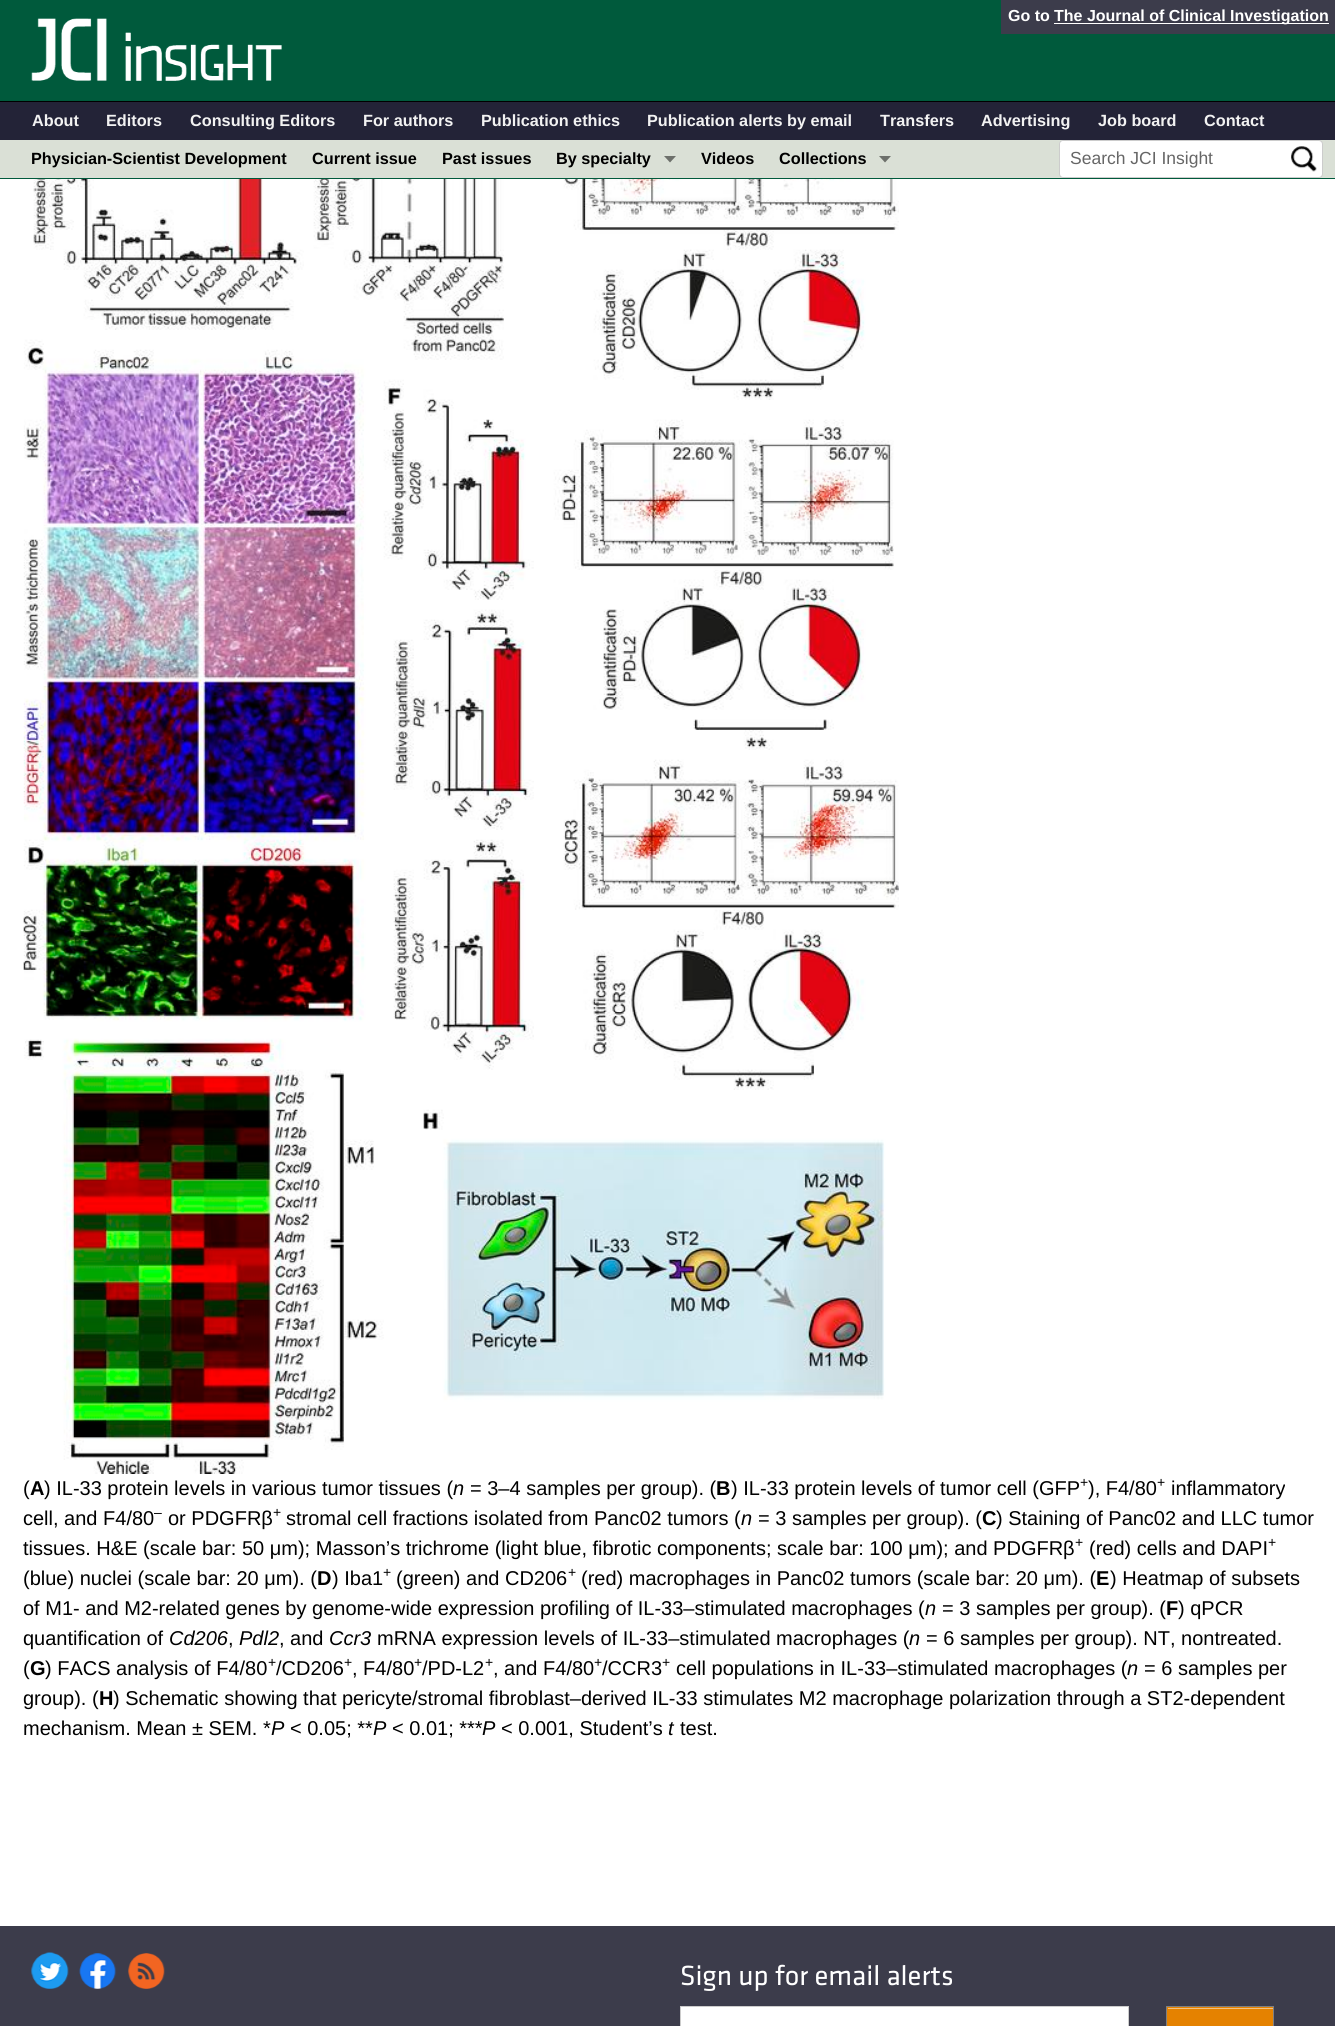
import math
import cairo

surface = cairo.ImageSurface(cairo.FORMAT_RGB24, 1335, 2026)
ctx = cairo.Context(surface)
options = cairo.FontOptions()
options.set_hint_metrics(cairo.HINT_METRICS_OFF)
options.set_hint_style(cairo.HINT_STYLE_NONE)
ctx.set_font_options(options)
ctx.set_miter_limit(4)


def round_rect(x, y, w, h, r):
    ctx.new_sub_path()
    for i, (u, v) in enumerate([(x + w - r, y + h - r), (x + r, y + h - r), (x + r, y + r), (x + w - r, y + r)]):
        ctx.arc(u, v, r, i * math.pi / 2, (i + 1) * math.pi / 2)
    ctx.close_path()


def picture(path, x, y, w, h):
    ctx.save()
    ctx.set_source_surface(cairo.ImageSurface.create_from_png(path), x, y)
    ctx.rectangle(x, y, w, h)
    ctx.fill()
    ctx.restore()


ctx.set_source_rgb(1, 1, 1)
ctx.paint()
ctx.set_source_rgb(0, 0.353, 0.235)
ctx.rectangle(0, 0, 1335, 101)
ctx.fill()
picture("img1.png", 31, 18, 251, 63)
ctx.set_source_rgb(0.235, 0.235, 0.294)
ctx.rectangle(1001, 0, 334, 34)
ctx.fill()
ctx.select_font_face("Liberation Sans", cairo.FONT_SLANT_NORMAL, cairo.FONT_WEIGHT_BOLD)
ctx.set_font_size(16)
ctx.set_source_rgb(1, 1, 1)
ctx.move_to(1008, 21)
ctx.show_text("Go to")
ctx.rectangle(1054, 23, 275, 1)
ctx.fill()
ctx.move_to(1054, 21)
ctx.show_text("The Journal of Clinical Investigation")
ctx.set_source_rgb(0.137, 0.137, 0.216)
ctx.rectangle(0, 102, 1335, 38)
ctx.fill()
ctx.set_source_rgb(0, 0, 0)
ctx.rectangle(0, 101, 1335, 1)
ctx.fill()
ctx.set_font_size(16.25)
ctx.set_source_rgb(0.949, 0.949, 0.949)
ctx.move_to(32, 126)
ctx.show_text("About")
ctx.move_to(106, 126)
ctx.show_text("Editors")
ctx.move_to(190, 126)
ctx.show_text("Consulting Editors")
ctx.move_to(363, 126)
ctx.show_text("For authors")
ctx.move_to(481, 126)
ctx.show_text("Publication ethics")
ctx.move_to(647, 126)
ctx.show_text("Publication alerts by email")
ctx.move_to(880, 126)
ctx.show_text("Transfers")
ctx.move_to(981, 126)
ctx.show_text("Advertising")
ctx.move_to(1098, 126)
ctx.show_text("Job board")
ctx.move_to(1204, 126)
ctx.show_text("Contact")
ctx.set_source_rgb(0.855, 0.878, 0.839)
ctx.rectangle(0, 140, 1335, 38)
ctx.fill()
ctx.set_source_rgb(0, 0.353, 0.235)
ctx.rectangle(0, 178, 1335, 1)
ctx.fill()
ctx.set_source_rgb(0, 0, 0)
ctx.move_to(31, 164)
ctx.show_text("Physician-Scientist Development")
ctx.move_to(312, 164)
ctx.show_text("Current issue")
ctx.move_to(442, 164)
ctx.show_text("Past issues")
ctx.move_to(556, 164)
ctx.show_text("By specialty")
ctx.set_source_rgb(0.427, 0.439, 0.42)
ctx.new_path()
ctx.move_to(664, 156)
ctx.line_to(676, 156)
ctx.line_to(670, 162.5)
ctx.close_path()
ctx.fill()
ctx.set_source_rgb(0, 0, 0)
ctx.move_to(701, 164)
ctx.show_text("Videos")
ctx.move_to(779, 164)
ctx.show_text("Collections")
ctx.set_source_rgb(0.427, 0.439, 0.42)
ctx.new_path()
ctx.move_to(879, 156)
ctx.line_to(891, 156)
ctx.line_to(885, 162.5)
ctx.close_path()
ctx.fill()
ctx.set_source_rgb(1, 1, 1)
round_rect(1059.5, 140.5, 263, 37, 3.5)
ctx.fill_preserve()
ctx.set_source_rgb(0.8, 0.8, 0.8)
ctx.set_line_width(1)
ctx.stroke()
ctx.set_source_rgb(1, 1, 1)
round_rect(1060, 141, 223, 34, 4)
ctx.fill()
ctx.select_font_face("Liberation Sans")
ctx.set_font_size(17.5)
ctx.set_source_rgb(0.4, 0.4, 0.4)
ctx.move_to(1070, 164)
ctx.show_text("Search JCI Insight")
picture("img2.png", 1291, 146, 26, 26)
picture("img3.png", 23, 179, 876, 1295)
ctx.set_font_size(20)
ctx.set_source_rgb(0, 0, 0)
ctx.move_to(23, 1495)
ctx.show_text("(")
ctx.select_font_face("Liberation Sans", cairo.FONT_SLANT_NORMAL, cairo.FONT_WEIGHT_BOLD)
ctx.move_to(30, 1495)
ctx.show_text("A")
ctx.select_font_face("Liberation Sans")
ctx.move_to(44, 1495)
ctx.show_text(") IL-33 protein levels in various tumor tissues (")
ctx.select_font_face("Liberation Sans", cairo.FONT_SLANT_ITALIC)
ctx.move_to(453, 1495)
ctx.show_text("n")
ctx.select_font_face("Liberation Sans")
ctx.move_to(470, 1495)
ctx.show_text("= 3–4 samples per group). (")
ctx.select_font_face("Liberation Sans", cairo.FONT_SLANT_NORMAL, cairo.FONT_WEIGHT_BOLD)
ctx.move_to(716, 1495)
ctx.show_text("B")
ctx.select_font_face("Liberation Sans")
ctx.move_to(731, 1495)
ctx.show_text(") IL-33 protein levels of tumor cell (GFP")
ctx.set_font_size(14)
ctx.move_to(1080, 1487)
ctx.show_text("+")
ctx.set_font_size(20)
ctx.move_to(1088, 1495)
ctx.show_text("), F4/80")
ctx.set_font_size(14)
ctx.move_to(1157, 1487)
ctx.show_text("+")
ctx.set_font_size(20)
ctx.move_to(1171, 1495)
ctx.show_text("inflammatory")
ctx.move_to(23, 1525)
ctx.show_text("cell, and F4/80")
ctx.set_font_size(14)
ctx.move_to(154, 1517)
ctx.show_text("–")
ctx.set_font_size(20)
ctx.move_to(168, 1525)
ctx.show_text("or PDGFRβ")
ctx.set_font_size(14)
ctx.move_to(273, 1517)
ctx.show_text("+")
ctx.set_font_size(20)
ctx.move_to(286, 1525)
ctx.show_text("stromal cell fractions isolated from Panc02 tumors (")
ctx.move_to(758, 1525)
ctx.show_text("= 3 samples per group). (")
ctx.select_font_face("Liberation Sans", cairo.FONT_SLANT_NORMAL, cairo.FONT_WEIGHT_BOLD)
ctx.move_to(982, 1525)
ctx.show_text("C")
ctx.select_font_face("Liberation Sans")
ctx.move_to(996, 1525)
ctx.show_text(") Staining of Panc02 and LLC tumor")
ctx.select_font_face("Liberation Sans", cairo.FONT_SLANT_ITALIC)
ctx.move_to(741, 1525)
ctx.show_text("n")
ctx.select_font_face("Liberation Sans")
ctx.move_to(23, 1555)
ctx.show_text("tissues. H&E (scale bar: 50 μm); Masson’s trichrome (light blue, fibrotic components; scale bar: 100 μm); and PDGFRβ")
ctx.set_font_size(14)
ctx.move_to(1075, 1547)
ctx.show_text("+")
ctx.set_font_size(20)
ctx.move_to(1089, 1555)
ctx.show_text("(red) cells and DAPI")
ctx.set_font_size(14)
ctx.move_to(1268, 1547)
ctx.show_text("+")
ctx.set_font_size(20)
ctx.move_to(23, 1585)
ctx.show_text("(blue) nuclei (scale bar: 20 μm). (")
ctx.select_font_face("Liberation Sans", cairo.FONT_SLANT_NORMAL, cairo.FONT_WEIGHT_BOLD)
ctx.move_to(317, 1585)
ctx.show_text("D")
ctx.select_font_face("Liberation Sans")
ctx.move_to(332, 1585)
ctx.show_text(") Iba1")
ctx.set_font_size(14)
ctx.move_to(383, 1577)
ctx.show_text("+")
ctx.set_font_size(20)
ctx.move_to(396, 1585)
ctx.show_text("(green) and CD206")
ctx.set_font_size(14)
ctx.move_to(568, 1577)
ctx.show_text("+")
ctx.set_font_size(20)
ctx.move_to(581, 1585)
ctx.show_text("(red) macrophages in Panc02 tumors (scale bar: 20 μm). (")
ctx.select_font_face("Liberation Sans", cairo.FONT_SLANT_NORMAL, cairo.FONT_WEIGHT_BOLD)
ctx.move_to(1096, 1585)
ctx.show_text("E")
ctx.select_font_face("Liberation Sans")
ctx.move_to(1110, 1585)
ctx.show_text(") Heatmap of subsets")
ctx.move_to(23, 1615)
ctx.show_text("of M1- and M2-related genes by genome-wide expression profiling of IL-33–stimulated macrophages (")
ctx.select_font_face("Liberation Sans", cairo.FONT_SLANT_ITALIC)
ctx.move_to(925, 1615)
ctx.show_text("n")
ctx.select_font_face("Liberation Sans")
ctx.move_to(942, 1615)
ctx.show_text("= 3 samples per group). (")
ctx.select_font_face("Liberation Sans", cairo.FONT_SLANT_NORMAL, cairo.FONT_WEIGHT_BOLD)
ctx.move_to(1166, 1615)
ctx.show_text("F")
ctx.select_font_face("Liberation Sans")
ctx.move_to(1178, 1615)
ctx.show_text(") qPCR")
ctx.move_to(23, 1645)
ctx.show_text("quantification of")
ctx.select_font_face("Liberation Sans", cairo.FONT_SLANT_ITALIC)
ctx.move_to(169, 1645)
ctx.show_text("Cd206")
ctx.select_font_face("Liberation Sans")
ctx.move_to(228, 1645)
ctx.show_text(",")
ctx.select_font_face("Liberation Sans", cairo.FONT_SLANT_ITALIC)
ctx.move_to(239, 1645)
ctx.show_text("Pdl2")
ctx.select_font_face("Liberation Sans")
ctx.move_to(279, 1645)
ctx.show_text(", and")
ctx.select_font_face("Liberation Sans", cairo.FONT_SLANT_ITALIC)
ctx.move_to(329, 1645)
ctx.show_text("Ccr3")
ctx.select_font_face("Liberation Sans")
ctx.move_to(377, 1645)
ctx.show_text("mRNA expression levels of IL-33–stimulated macrophages (")
ctx.select_font_face("Liberation Sans", cairo.FONT_SLANT_ITALIC)
ctx.move_to(909, 1645)
ctx.show_text("n")
ctx.select_font_face("Liberation Sans")
ctx.move_to(926, 1645)
ctx.show_text("= 6 samples per group). NT, nontreated.")
ctx.move_to(23, 1675)
ctx.show_text("(")
ctx.select_font_face("Liberation Sans", cairo.FONT_SLANT_NORMAL, cairo.FONT_WEIGHT_BOLD)
ctx.move_to(30, 1675)
ctx.show_text("G")
ctx.select_font_face("Liberation Sans")
ctx.move_to(45, 1675)
ctx.show_text(") FACS analysis of F4/80")
ctx.move_to(276, 1675)
ctx.show_text("/CD206")
ctx.set_font_size(14)
ctx.move_to(268, 1667)
ctx.show_text("+")
ctx.move_to(344, 1667)
ctx.show_text("+")
ctx.set_font_size(20)
ctx.move_to(352, 1675)
ctx.show_text(", F4/80")
ctx.set_font_size(14)
ctx.move_to(414, 1667)
ctx.show_text("+")
ctx.set_font_size(20)
ctx.move_to(422, 1675)
ctx.show_text("/PD-L2")
ctx.set_font_size(14)
ctx.move_to(485, 1667)
ctx.show_text("+")
ctx.set_font_size(20)
ctx.move_to(493, 1675)
ctx.show_text(", and F4/80")
ctx.set_font_size(14)
ctx.move_to(594, 1667)
ctx.show_text("+")
ctx.set_font_size(20)
ctx.move_to(602, 1675)
ctx.show_text("/CCR3")
ctx.set_font_size(14)
ctx.move_to(662, 1667)
ctx.show_text("+")
ctx.set_font_size(20)
ctx.move_to(676, 1675)
ctx.show_text("cell populations in IL-33–stimulated macrophages (")
ctx.select_font_face("Liberation Sans", cairo.FONT_SLANT_ITALIC)
ctx.move_to(1127, 1675)
ctx.show_text("n")
ctx.select_font_face("Liberation Sans")
ctx.move_to(1144, 1675)
ctx.show_text("= 6 samples per")
ctx.move_to(23, 1705)
ctx.show_text("group). (")
ctx.select_font_face("Liberation Sans", cairo.FONT_SLANT_NORMAL, cairo.FONT_WEIGHT_BOLD)
ctx.move_to(99, 1705)
ctx.show_text("H")
ctx.select_font_face("Liberation Sans")
ctx.move_to(113, 1705)
ctx.show_text(") Schematic showing that pericyte/stromal fibroblast–derived IL-33 stimulates M2 macrophage polarization through a ST2-dependent")
ctx.move_to(23, 1735)
ctx.show_text("mechanism. Mean ± SEM. *")
ctx.select_font_face("Liberation Sans", cairo.FONT_SLANT_ITALIC)
ctx.move_to(271, 1735)
ctx.show_text("P")
ctx.select_font_face("Liberation Sans")
ctx.move_to(290, 1735)
ctx.show_text("< 0.05; **")
ctx.select_font_face("Liberation Sans", cairo.FONT_SLANT_ITALIC)
ctx.move_to(373, 1735)
ctx.show_text("P")
ctx.select_font_face("Liberation Sans")
ctx.move_to(392, 1735)
ctx.show_text("< 0.01; ***")
ctx.select_font_face("Liberation Sans", cairo.FONT_SLANT_ITALIC)
ctx.move_to(482, 1735)
ctx.show_text("P")
ctx.select_font_face("Liberation Sans")
ctx.move_to(501, 1735)
ctx.show_text("< 0.001, Student’s")
ctx.select_font_face("Liberation Sans", cairo.FONT_SLANT_ITALIC)
ctx.move_to(668, 1735)
ctx.show_text("t")
ctx.select_font_face("Liberation Sans")
ctx.move_to(680, 1735)
ctx.show_text("test.")
ctx.set_source_rgb(0.235, 0.235, 0.294)
ctx.rectangle(0, 1926, 1335, 100)
ctx.fill()
picture("img4.png", 31, 1952, 38, 37)
picture("img5.png", 79, 1953, 38, 36)
picture("img6.png", 128, 1953, 37, 36)
ctx.select_font_face("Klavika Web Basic")
ctx.set_font_size(28.75)
ctx.set_source_rgb(1, 1, 1)
ctx.move_to(680, 1985)
ctx.show_text("Sign up for email alerts")
ctx.rectangle(680.5, 2006.5, 448, 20)
ctx.fill_preserve()
ctx.set_source_rgb(0.8, 0.8, 0.8)
ctx.stroke()
ctx.set_source_rgb(0.898, 0.51, 0)
ctx.rectangle(1167, 2007, 106, 19)
ctx.fill()
ctx.set_source_rgb(0.949, 0.757, 0.502)
ctx.rectangle(1168, 2008, 105, 1)
ctx.fill()
ctx.rectangle(1166.5, 2006.5, 107, 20)
ctx.set_source_rgb(0.502, 0.502, 0.502)
ctx.stroke()
surface.write_to_png("page.png")
